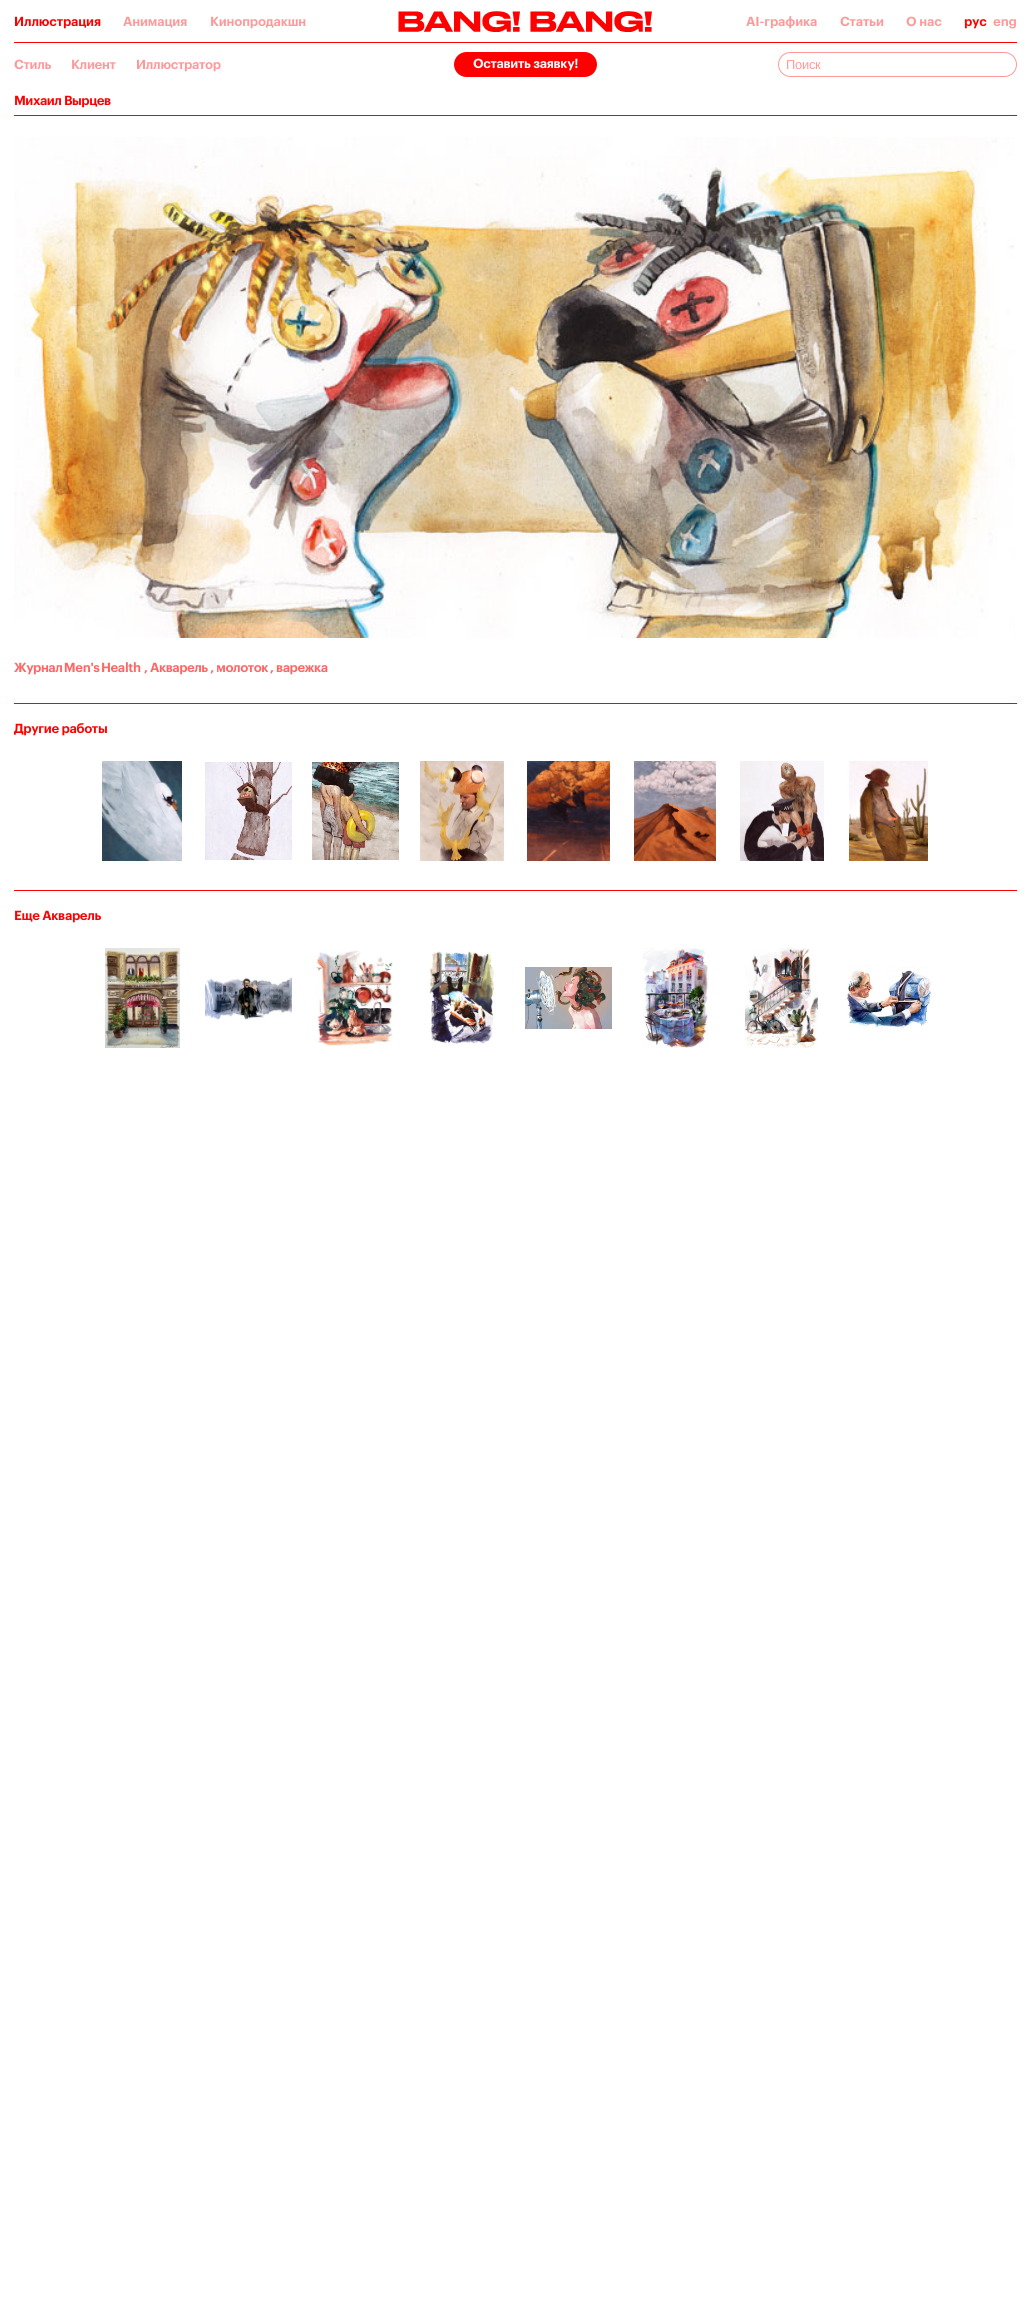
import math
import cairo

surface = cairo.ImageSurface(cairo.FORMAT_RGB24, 1031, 2323)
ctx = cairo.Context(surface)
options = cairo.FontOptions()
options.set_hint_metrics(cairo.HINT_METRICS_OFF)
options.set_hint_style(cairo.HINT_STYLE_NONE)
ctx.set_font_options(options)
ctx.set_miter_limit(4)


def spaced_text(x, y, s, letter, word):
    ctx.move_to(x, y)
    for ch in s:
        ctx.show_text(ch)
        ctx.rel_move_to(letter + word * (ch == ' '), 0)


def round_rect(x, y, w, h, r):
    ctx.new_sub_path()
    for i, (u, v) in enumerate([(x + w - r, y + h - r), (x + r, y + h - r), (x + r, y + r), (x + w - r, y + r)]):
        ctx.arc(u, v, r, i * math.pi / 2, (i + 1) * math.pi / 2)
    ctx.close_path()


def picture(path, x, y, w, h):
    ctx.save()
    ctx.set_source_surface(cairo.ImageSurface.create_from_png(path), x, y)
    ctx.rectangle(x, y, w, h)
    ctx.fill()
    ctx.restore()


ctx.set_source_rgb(1, 1, 1)
ctx.paint()
ctx.select_font_face("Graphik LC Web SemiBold")
ctx.set_font_size(12.9)
ctx.set_source_rgb(1, 0, 0)
spaced_text(14, 26, "Иллюстрация", -0.1, 0)
ctx.set_source_rgb(1, 0.6, 0.6)
spaced_text(123, 26, "Анимация", -0.1, 0)
spaced_text(210, 26, "Кинопродакшн", -0.1, 0)
picture("img1.png", 398, 11, 254, 21)
spaced_text(746, 26, "AI-графика", -0.1, 0)
spaced_text(840, 26, "Статьи", -0.1, 0)
spaced_text(906, 26, "О нас", -0.1, 0)
ctx.set_source_rgb(1, 0, 0)
spaced_text(964, 26, "рус", -0.1, 0)
ctx.set_source_rgb(1, 0.6, 0.6)
spaced_text(993, 26, "eng", -0.1, 0)
ctx.set_source_rgb(1, 0, 0)
ctx.rectangle(14, 42, 1003, 1)
ctx.fill()
ctx.set_source_rgb(1, 0.6, 0.6)
spaced_text(14, 69, "Стиль", -0.25, 0)
spaced_text(71, 69, "Клиент", -0.25, 0)
spaced_text(136, 69, "Иллюстратор", -0.25, 0)
ctx.set_source_rgb(1, 0, 0)
round_rect(454, 52, 143, 25, 12.5)
ctx.fill()
ctx.set_source_rgb(1, 1, 1)
spaced_text(473, 68, "Оставить заявку!", -0.25, 0)
round_rect(778.5, 52.5, 238, 24, 12)
ctx.set_source_rgb(1, 0.6, 0.6)
ctx.set_line_width(1)
ctx.stroke()
ctx.select_font_face("Liberation Sans")
spaced_text(786, 69, "Поиск", -0.25, 0)
ctx.set_source_rgb(1, 0, 0)
ctx.rectangle(14, 115, 1003, 1)
ctx.fill()
ctx.select_font_face("Graphik LC Web SemiBold")
spaced_text(14, 105, "Михаил Вырцев", -0.4, 0)
picture("img2.png", 14, 137, 1001, 501)
ctx.set_source_rgb(1, 0.4, 0.4)
spaced_text(14, 672, "Журнал Men's Health", -0.4, -1)
spaced_text(144, 672, ", Акварель , молоток", -0.4, 0)
spaced_text(270, 672, ", варежка", -0.4, 0)
ctx.set_source_rgb(1, 0, 0)
ctx.rectangle(14, 703, 1003, 1)
ctx.fill()
spaced_text(14, 733, "Другие работы", -0.25, 0)
picture("img3.png", 102, 761, 80, 100)
picture("img4.png", 205, 762, 87, 98)
picture("img5.png", 312, 762, 87, 98)
picture("img6.png", 420, 761, 84, 100)
picture("img7.png", 527, 761, 83, 100)
picture("img8.png", 634, 761, 82, 100)
picture("img9.png", 740, 761, 84, 100)
picture("img10.png", 849, 761, 79, 100)
ctx.rectangle(14, 890, 1003, 1)
ctx.fill()
spaced_text(14, 920, "Еще Акварель", -0.25, 0)
picture("img11.png", 105, 948, 75, 100)
picture("img12.png", 205, 977, 87, 43)
picture("img13.png", 316, 950, 77, 96)
picture("img14.png", 429, 951, 66, 93)
picture("img15.png", 525, 967, 87, 62)
picture("img16.png", 642, 948, 67, 100)
picture("img17.png", 745, 948, 73, 100)
picture("img18.png", 846, 967, 85, 62)
surface.write_to_png("page.png")
